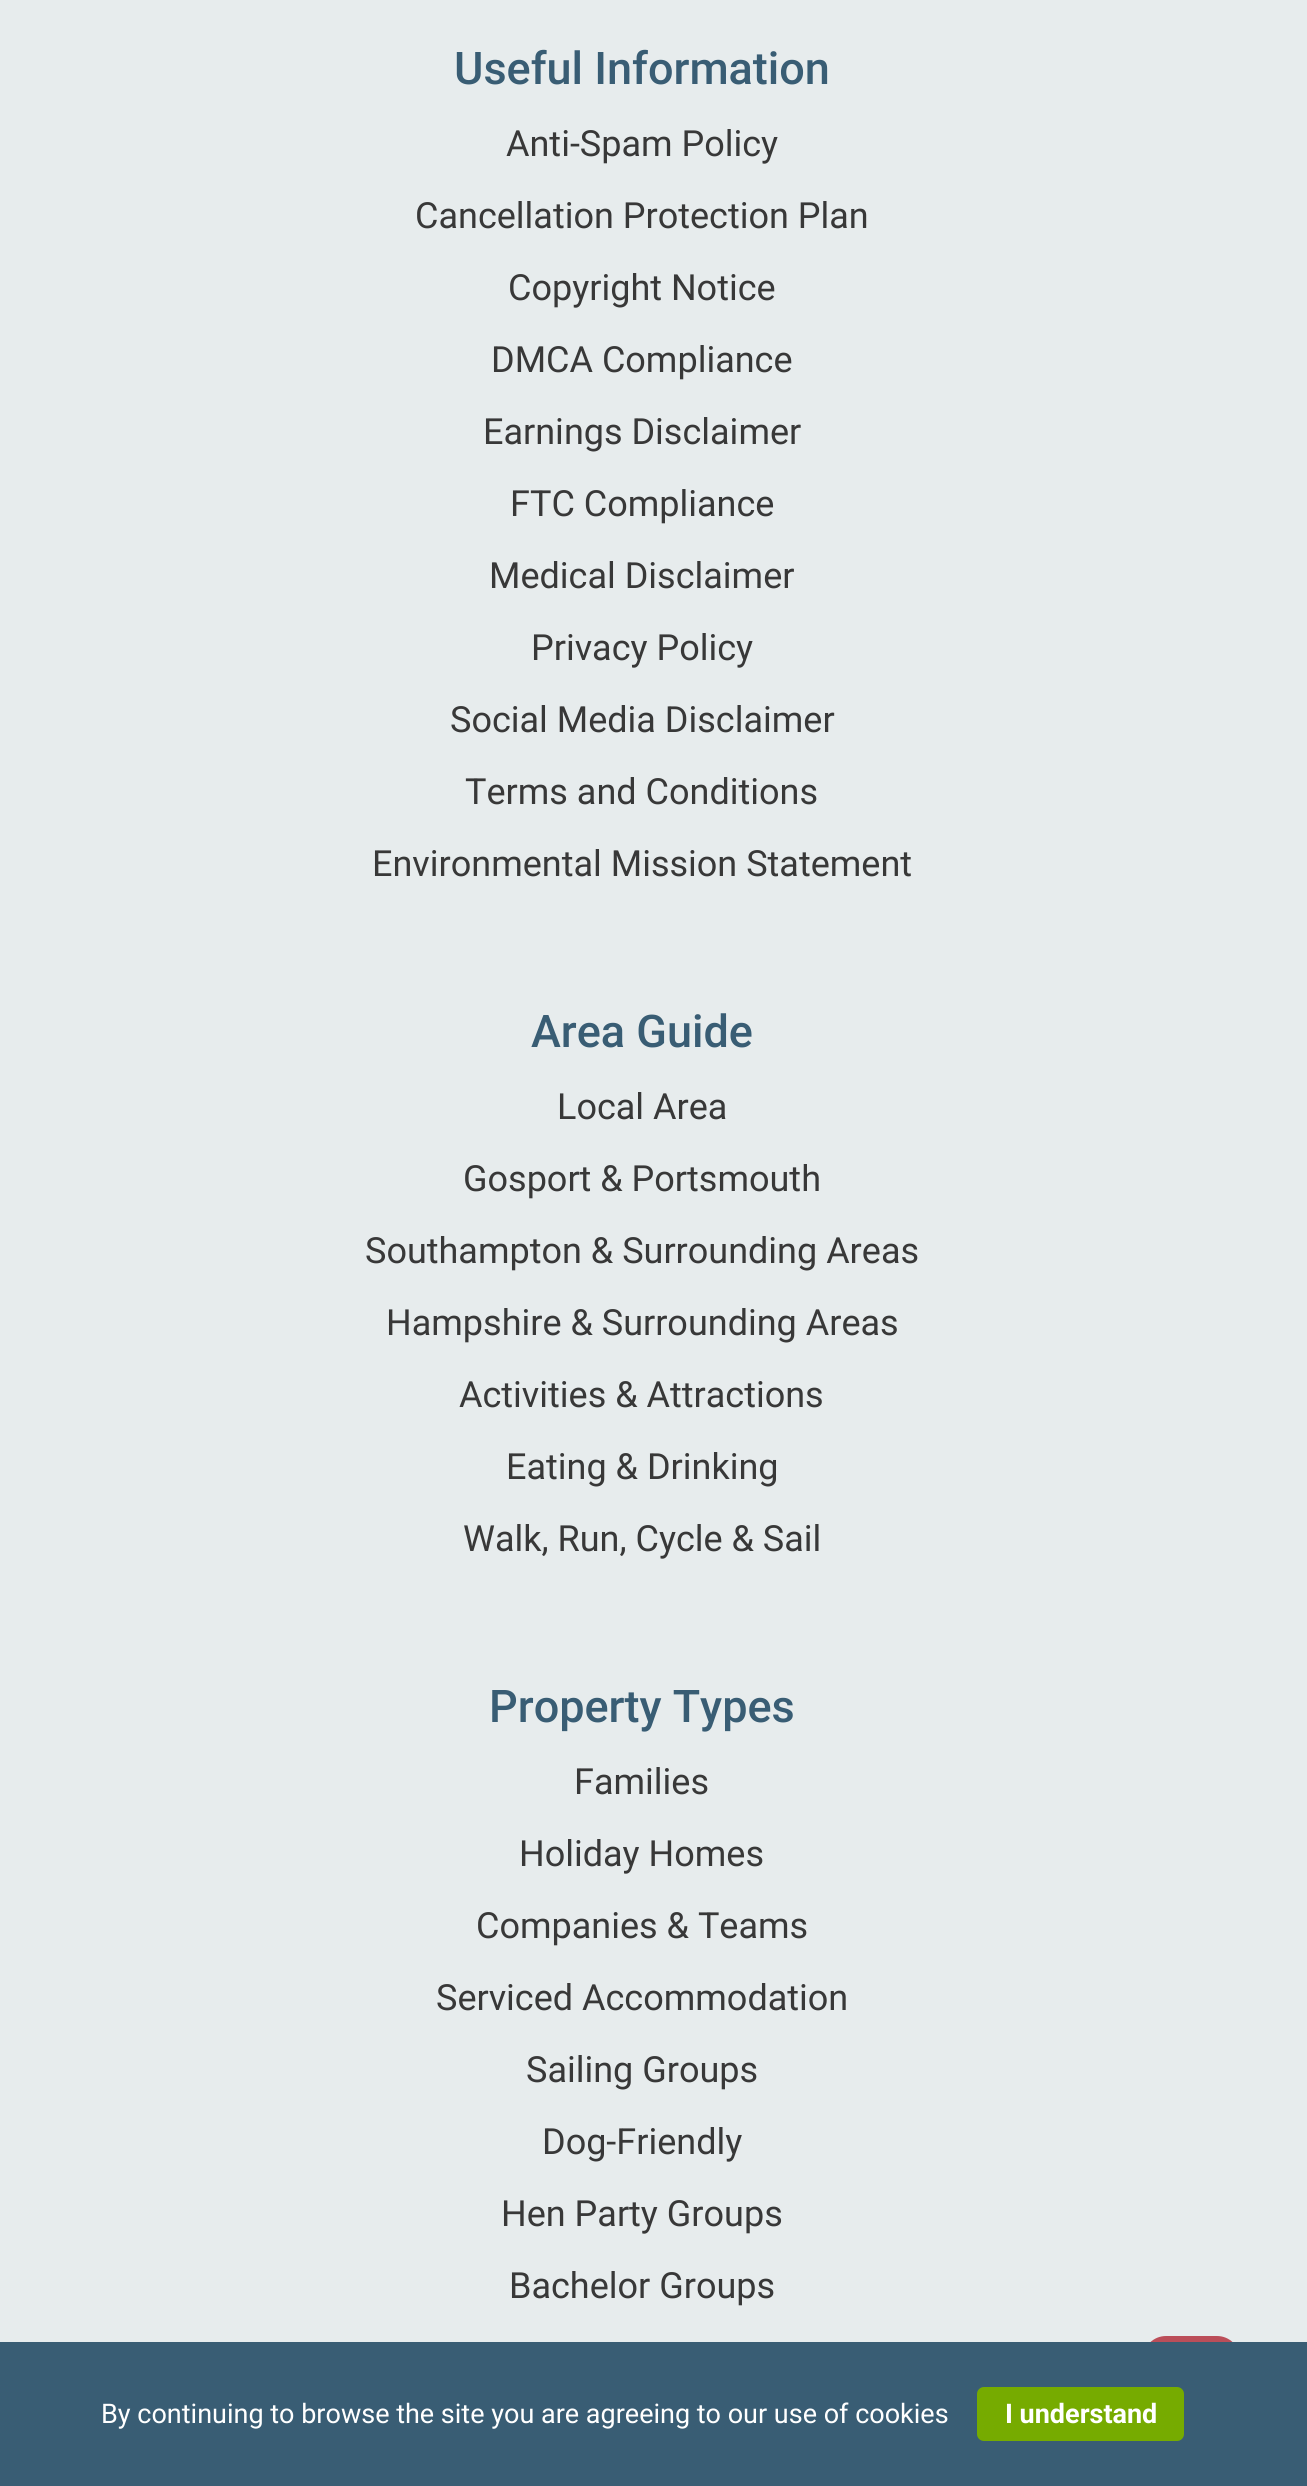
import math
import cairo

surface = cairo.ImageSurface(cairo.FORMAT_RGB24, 1307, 2486)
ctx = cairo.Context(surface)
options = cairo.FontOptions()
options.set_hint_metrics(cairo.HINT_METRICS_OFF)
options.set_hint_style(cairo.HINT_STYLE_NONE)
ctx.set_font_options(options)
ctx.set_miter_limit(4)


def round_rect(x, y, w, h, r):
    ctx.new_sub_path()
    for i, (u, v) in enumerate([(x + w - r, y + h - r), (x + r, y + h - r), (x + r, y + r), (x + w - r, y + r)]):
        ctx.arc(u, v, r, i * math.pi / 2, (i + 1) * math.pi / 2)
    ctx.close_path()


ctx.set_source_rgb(0.906, 0.925, 0.929)
ctx.paint()
ctx.select_font_face("Roboto Medium")
ctx.set_font_size(45)
ctx.set_source_rgb(0.224, 0.365, 0.455)
ctx.move_to(454, 84)
ctx.show_text("Useful Information")
ctx.select_font_face("Roboto")
ctx.set_font_size(36)
ctx.set_source_rgb(0.22, 0.22, 0.22)
ctx.move_to(506, 156)
ctx.show_text("Anti-Spam Policy")
ctx.move_to(415, 228)
ctx.show_text("Cancellation Protection Plan")
ctx.move_to(508, 300)
ctx.show_text("Copyright Notice")
ctx.move_to(491, 372)
ctx.show_text("DMCA Compliance")
ctx.move_to(483, 444)
ctx.show_text("Earnings Disclaimer")
ctx.move_to(510, 516)
ctx.show_text("FTC Compliance")
ctx.move_to(489, 588)
ctx.show_text("Medical Disclaimer")
ctx.move_to(531, 660)
ctx.show_text("Privacy Policy")
ctx.move_to(450, 732)
ctx.show_text("Social Media Disclaimer")
ctx.move_to(465, 804)
ctx.show_text("Terms and Conditions")
ctx.move_to(372, 876)
ctx.show_text("Environmental Mission Statement")
ctx.select_font_face("Roboto Medium")
ctx.set_font_size(45)
ctx.set_source_rgb(0.224, 0.365, 0.455)
ctx.move_to(531, 1047)
ctx.show_text("Area Guide")
ctx.select_font_face("Roboto")
ctx.set_font_size(36)
ctx.set_source_rgb(0.22, 0.22, 0.22)
ctx.move_to(557, 1119)
ctx.show_text("Local Area")
ctx.move_to(463, 1191)
ctx.show_text("Gosport & Portsmouth")
ctx.move_to(365, 1263)
ctx.show_text("Southampton & Surrounding Areas")
ctx.move_to(386, 1335)
ctx.show_text("Hampshire & Surrounding Areas")
ctx.move_to(459, 1407)
ctx.show_text("Activities & Attractions")
ctx.move_to(506, 1479)
ctx.show_text("Eating & Drinking")
ctx.move_to(463, 1551)
ctx.show_text("Walk, Run, Cycle & Sail")
ctx.select_font_face("Roboto Medium")
ctx.set_font_size(45)
ctx.set_source_rgb(0.224, 0.365, 0.455)
ctx.move_to(489, 1722)
ctx.show_text("Property Types")
ctx.select_font_face("Roboto")
ctx.set_font_size(36)
ctx.set_source_rgb(0.22, 0.22, 0.22)
ctx.move_to(574, 1794)
ctx.show_text("Families")
ctx.move_to(519, 1866)
ctx.show_text("Holiday Homes")
ctx.move_to(476, 1938)
ctx.show_text("Companies & Teams")
ctx.move_to(436, 2010)
ctx.show_text("Serviced Accommodation")
ctx.move_to(526, 2082)
ctx.show_text("Sailing Groups")
ctx.move_to(542, 2154)
ctx.show_text("Dog-Friendly")
ctx.move_to(501, 2226)
ctx.show_text("Hen Party Groups")
ctx.move_to(509, 2298)
ctx.show_text("Bachelor Groups")
ctx.set_source_rgb(0.733, 0.306, 0.349)
round_rect(1143, 2336, 97, 105, 23)
ctx.fill()
ctx.set_source_rgb(0.224, 0.365, 0.455)
ctx.rectangle(0, 2342, 1307, 144)
ctx.fill()
ctx.set_font_size(27)
ctx.set_source_rgb(1, 1, 1)
ctx.move_to(101, 2423)
ctx.show_text("By continuing to browse the site you are agreeing to our use of cookies")
ctx.set_source_rgb(0.463, 0.671, 0)
round_rect(977, 2387, 207, 54, 7)
ctx.fill()
ctx.select_font_face("Roboto", cairo.FONT_SLANT_NORMAL, cairo.FONT_WEIGHT_BOLD)
ctx.set_source_rgb(1, 1, 1)
ctx.move_to(1005, 2423)
ctx.show_text("I understand")
surface.write_to_png("page.png")
